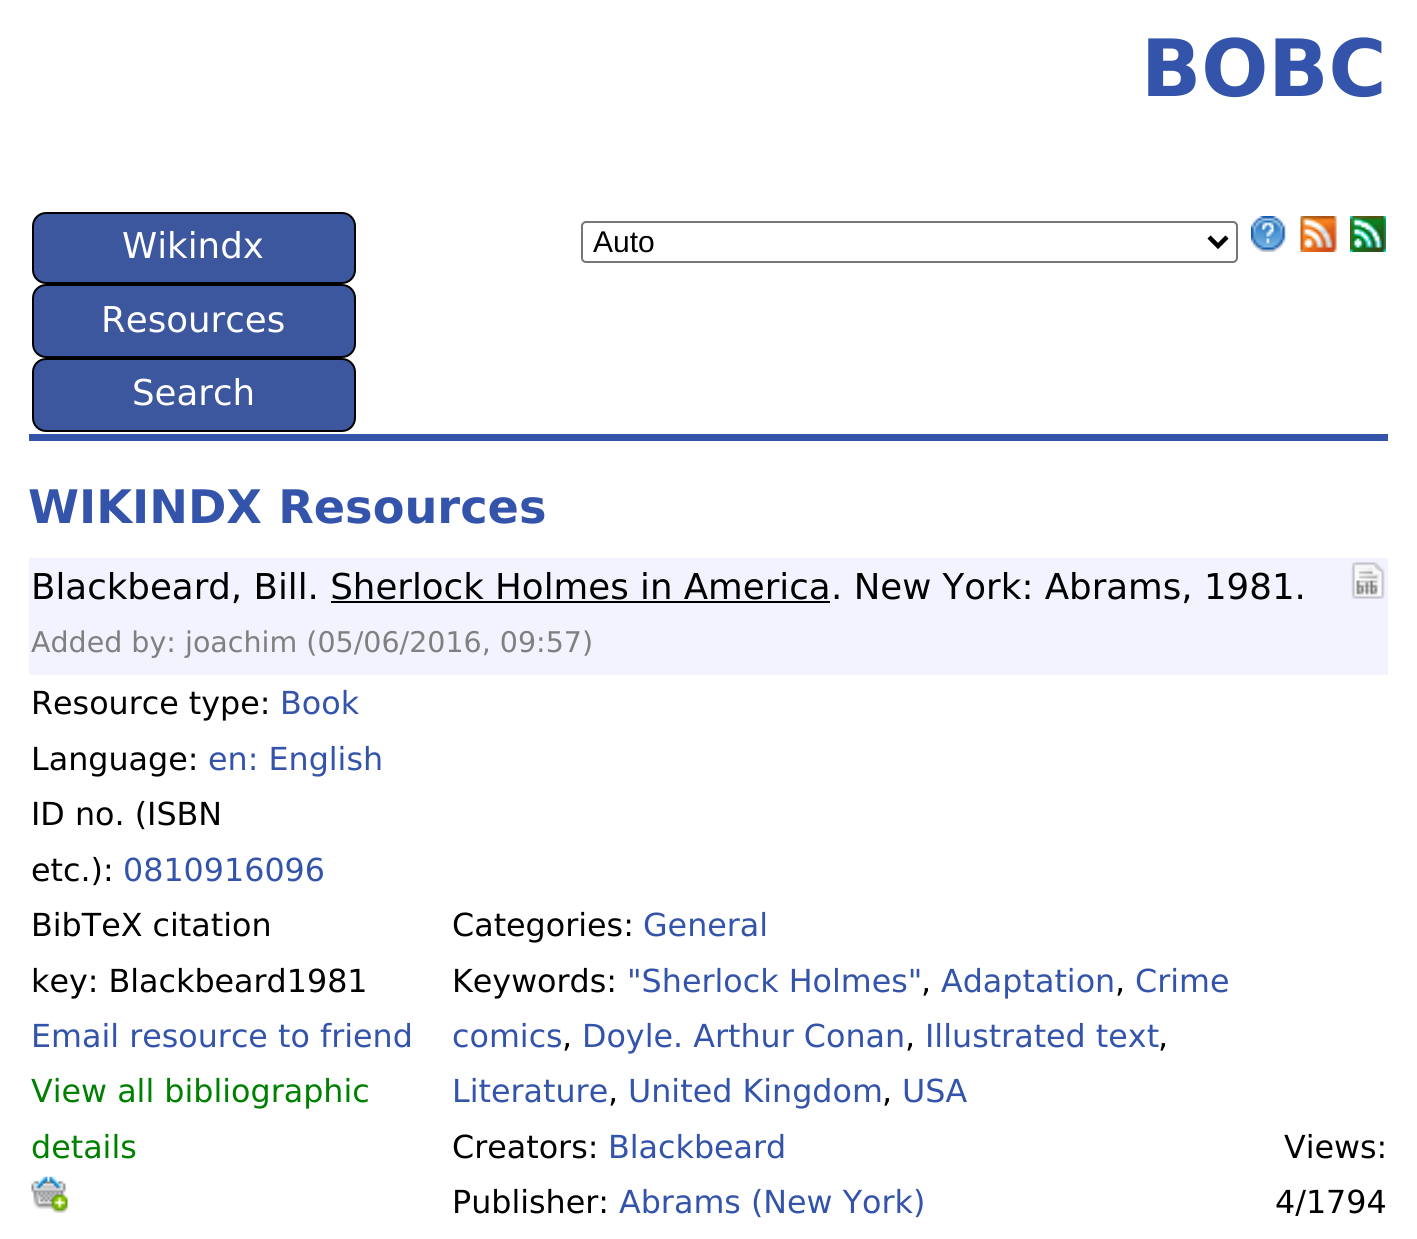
import math
import cairo

surface = cairo.ImageSurface(cairo.FORMAT_RGB24, 1417, 1239)
ctx = cairo.Context(surface)
options = cairo.FontOptions()
options.set_hint_metrics(cairo.HINT_METRICS_OFF)
options.set_hint_style(cairo.HINT_STYLE_NONE)
ctx.set_font_options(options)
ctx.set_miter_limit(4)


def round_rect(x, y, w, h, r):
    ctx.new_sub_path()
    for i, (u, v) in enumerate([(x + w - r, y + h - r), (x + r, y + h - r), (x + r, y + r), (x + w - r, y + r)]):
        ctx.arc(u, v, r, i * math.pi / 2, (i + 1) * math.pi / 2)
    ctx.close_path()


def picture(path, x, y, w, h):
    ctx.save()
    ctx.set_source_surface(cairo.ImageSurface.create_from_png(path), x, y)
    ctx.rectangle(x, y, w, h)
    ctx.fill()
    ctx.restore()


ctx.set_source_rgb(1, 1, 1)
ctx.paint()
ctx.select_font_face("DejaVu Sans", cairo.FONT_SLANT_NORMAL, cairo.FONT_WEIGHT_BOLD)
ctx.set_font_size(79)
ctx.set_source_rgb(0.2, 0.329, 0.667)
ctx.move_to(1141, 96)
ctx.show_text("BOBC")
ctx.rectangle(29, 434, 1359, 7)
ctx.fill()
ctx.set_source_rgb(0.235, 0.341, 0.616)
round_rect(33, 213, 322, 70, 13)
ctx.fill_preserve()
ctx.set_source_rgb(0, 0, 0)
ctx.stroke()
ctx.select_font_face("DejaVu Sans")
ctx.set_font_size(35.6)
ctx.set_source_rgb(1, 1, 1)
ctx.move_to(122, 258)
ctx.show_text("Wikindx")
ctx.set_source_rgb(0.235, 0.341, 0.616)
round_rect(33, 285, 322, 72, 13)
ctx.fill_preserve()
ctx.set_source_rgb(0, 0, 0)
ctx.stroke()
ctx.set_source_rgb(1, 1, 1)
ctx.move_to(101, 332)
ctx.show_text("Resources")
ctx.set_source_rgb(0.235, 0.341, 0.616)
round_rect(33, 359, 322, 72, 13)
ctx.fill_preserve()
ctx.set_source_rgb(0, 0, 0)
ctx.stroke()
ctx.set_source_rgb(1, 1, 1)
ctx.move_to(132, 405)
ctx.show_text("Search")
round_rect(582, 222, 655, 40, 4)
ctx.set_source_rgb(0.463, 0.463, 0.463)
ctx.stroke()
ctx.new_path()
ctx.move_to(1209, 237)
ctx.line_to(1218, 246)
ctx.line_to(1227, 237)
ctx.set_source_rgb(0, 0, 0)
ctx.set_line_width(4.5)
ctx.stroke()
ctx.select_font_face("Liberation Sans")
ctx.set_font_size(30)
ctx.move_to(593, 252)
ctx.show_text("Auto")
picture("img1.png", 1251, 216, 35, 36)
picture("img2.png", 1300, 216, 37, 36)
picture("img3.png", 1350, 216, 36, 36)
ctx.select_font_face("DejaVu Sans", cairo.FONT_SLANT_NORMAL, cairo.FONT_WEIGHT_BOLD)
ctx.set_font_size(46.25)
ctx.set_source_rgb(0.2, 0.329, 0.667)
ctx.move_to(28, 523)
ctx.show_text("WIKINDX Resources")
ctx.set_source_rgb(0.949, 0.953, 1)
ctx.rectangle(29, 558, 1359, 117)
ctx.fill()
ctx.select_font_face("DejaVu Sans")
ctx.set_font_size(35.6)
ctx.set_source_rgb(0, 0, 0)
ctx.move_to(31, 599)
ctx.show_text("Blackbeard, Bill. Sherlock Holmes in America")
ctx.move_to(831, 599)
ctx.show_text(". New York: Abrams, 1981.")
ctx.rectangle(331, 601, 499, 2)
ctx.fill()
ctx.set_font_size(28.5)
ctx.set_source_rgb(0.502, 0.502, 0.502)
ctx.move_to(31, 652)
ctx.show_text("Added by: joachim (05/06/2016, 09:57)")
picture("img4.png", 1351, 562, 34, 37)
ctx.set_font_size(31.75)
ctx.set_source_rgb(0, 0, 0)
ctx.move_to(31, 714)
ctx.show_text("Resource type:")
ctx.set_source_rgb(0.2, 0.329, 0.667)
ctx.move_to(280, 714)
ctx.show_text("Book")
ctx.set_source_rgb(0, 0, 0)
ctx.move_to(31, 770)
ctx.show_text("Language:")
ctx.set_source_rgb(0.2, 0.329, 0.667)
ctx.move_to(208, 770)
ctx.show_text("en: English")
ctx.set_source_rgb(0, 0, 0)
ctx.move_to(31, 825)
ctx.show_text("ID no. (ISBN")
ctx.move_to(31, 881)
ctx.show_text("etc.):")
ctx.set_source_rgb(0.2, 0.329, 0.667)
ctx.move_to(123, 881)
ctx.show_text("0810916096")
ctx.set_source_rgb(0, 0, 0)
ctx.move_to(31, 936)
ctx.show_text("BibTeX citation")
ctx.move_to(31, 992)
ctx.show_text("key: Blackbeard1981")
ctx.set_source_rgb(0.2, 0.329, 0.667)
ctx.move_to(31, 1047)
ctx.show_text("Email resource to friend")
ctx.set_source_rgb(0, 0.502, 0)
ctx.move_to(31, 1102)
ctx.show_text("View all bibliographic")
ctx.move_to(31, 1158)
ctx.show_text("details")
picture("img5.png", 31, 1176, 37, 37)
ctx.set_source_rgb(0, 0, 0)
ctx.move_to(452, 936)
ctx.show_text("Categories:")
ctx.set_source_rgb(0.2, 0.329, 0.667)
ctx.move_to(643, 936)
ctx.show_text("General")
ctx.set_source_rgb(0, 0, 0)
ctx.move_to(452, 992)
ctx.show_text("Keywords:")
ctx.set_source_rgb(0.2, 0.329, 0.667)
ctx.move_to(627, 992)
ctx.show_text("\"Sherlock Holmes\"")
ctx.set_source_rgb(0, 0, 0)
ctx.move_to(921, 992)
ctx.show_text(",")
ctx.set_source_rgb(0.2, 0.329, 0.667)
ctx.move_to(941, 992)
ctx.show_text("Adaptation")
ctx.set_source_rgb(0, 0, 0)
ctx.move_to(1115, 992)
ctx.show_text(",")
ctx.set_source_rgb(0.2, 0.329, 0.667)
ctx.move_to(1135, 992)
ctx.show_text("Crime")
ctx.move_to(452, 1047)
ctx.show_text("comics")
ctx.set_source_rgb(0, 0, 0)
ctx.move_to(562, 1047)
ctx.show_text(",")
ctx.set_source_rgb(0.2, 0.329, 0.667)
ctx.move_to(582, 1047)
ctx.show_text("Doyle. Arthur Conan")
ctx.set_source_rgb(0, 0, 0)
ctx.move_to(905, 1047)
ctx.show_text(",")
ctx.set_source_rgb(0.2, 0.329, 0.667)
ctx.move_to(925, 1047)
ctx.show_text("Illustrated text")
ctx.set_source_rgb(0, 0, 0)
ctx.move_to(1158, 1047)
ctx.show_text(",")
ctx.set_source_rgb(0.2, 0.329, 0.667)
ctx.move_to(452, 1102)
ctx.show_text("Literature")
ctx.set_source_rgb(0, 0, 0)
ctx.move_to(608, 1102)
ctx.show_text(",")
ctx.set_source_rgb(0.2, 0.329, 0.667)
ctx.move_to(628, 1102)
ctx.show_text("United Kingdom")
ctx.set_source_rgb(0, 0, 0)
ctx.move_to(882, 1102)
ctx.show_text(",")
ctx.set_source_rgb(0.2, 0.329, 0.667)
ctx.move_to(902, 1102)
ctx.show_text("USA")
ctx.set_source_rgb(0, 0, 0)
ctx.move_to(452, 1158)
ctx.show_text("Creators:")
ctx.set_source_rgb(0.2, 0.329, 0.667)
ctx.move_to(608, 1158)
ctx.show_text("Blackbeard")
ctx.set_source_rgb(0, 0, 0)
ctx.move_to(452, 1213)
ctx.show_text("Publisher:")
ctx.set_source_rgb(0.2, 0.329, 0.667)
ctx.move_to(619, 1213)
ctx.show_text("Abrams (New York)")
ctx.set_source_rgb(0, 0, 0)
ctx.move_to(1284, 1158)
ctx.show_text("Views:")
ctx.move_to(1275, 1213)
ctx.show_text("4/1794")
surface.write_to_png("page.png")
